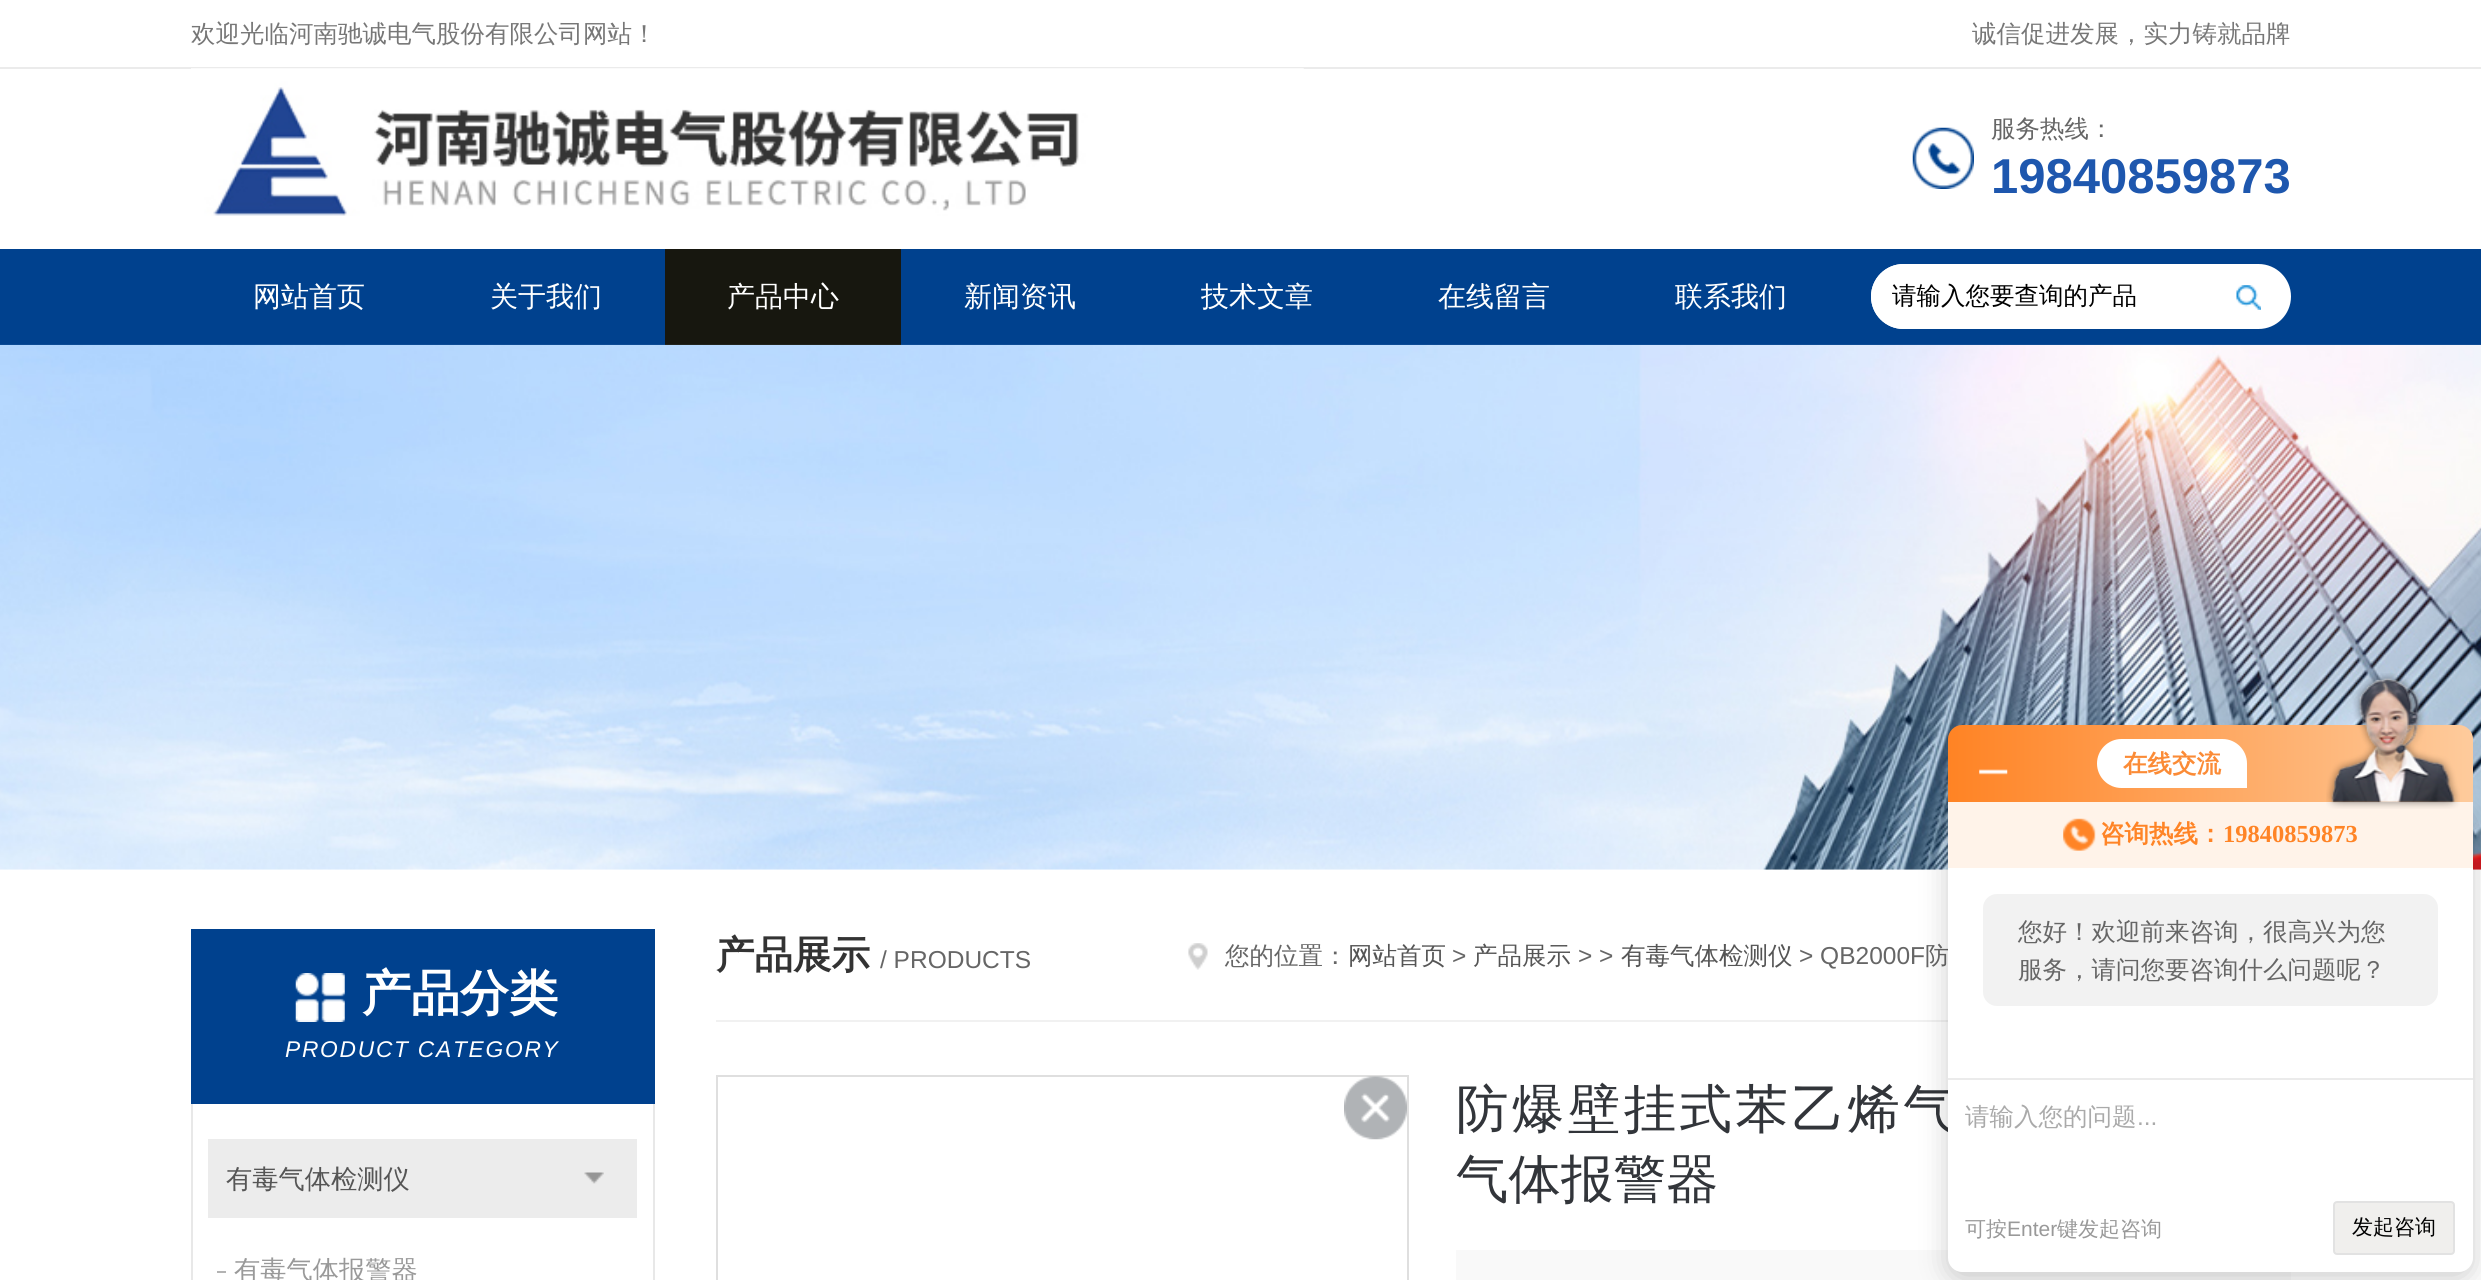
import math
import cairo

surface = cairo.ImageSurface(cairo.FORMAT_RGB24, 2481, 1280)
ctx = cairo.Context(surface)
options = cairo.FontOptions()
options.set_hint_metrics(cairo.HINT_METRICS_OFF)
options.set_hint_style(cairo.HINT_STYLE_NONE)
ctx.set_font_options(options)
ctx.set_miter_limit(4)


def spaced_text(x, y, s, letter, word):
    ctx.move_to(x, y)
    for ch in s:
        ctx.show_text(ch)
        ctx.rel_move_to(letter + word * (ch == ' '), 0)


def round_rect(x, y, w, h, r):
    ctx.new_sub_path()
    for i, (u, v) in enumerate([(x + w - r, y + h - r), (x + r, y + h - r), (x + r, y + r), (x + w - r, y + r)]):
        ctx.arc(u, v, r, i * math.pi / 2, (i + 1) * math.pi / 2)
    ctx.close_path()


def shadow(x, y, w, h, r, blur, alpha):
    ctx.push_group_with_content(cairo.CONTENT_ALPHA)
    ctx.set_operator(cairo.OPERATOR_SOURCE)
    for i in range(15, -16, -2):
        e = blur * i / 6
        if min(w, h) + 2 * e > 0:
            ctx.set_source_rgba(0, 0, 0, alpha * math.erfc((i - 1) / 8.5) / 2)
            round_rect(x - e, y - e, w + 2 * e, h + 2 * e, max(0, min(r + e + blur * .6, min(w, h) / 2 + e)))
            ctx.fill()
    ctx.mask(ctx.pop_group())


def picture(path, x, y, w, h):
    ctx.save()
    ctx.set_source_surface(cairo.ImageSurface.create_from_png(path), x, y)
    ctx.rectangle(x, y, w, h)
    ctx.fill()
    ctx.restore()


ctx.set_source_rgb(1, 1, 1)
ctx.paint()
ctx.set_source_rgb(0.918, 0.918, 0.918)
ctx.rectangle(0, 67, 2481, 2)
ctx.fill()
ctx.select_font_face("WenQuanYi Zen Hei Medium")
ctx.set_font_size(24.5)
ctx.set_source_rgb(0.467, 0.467, 0.467)
ctx.move_to(191, 42)
ctx.show_text("欢迎光临河南驰诚电气股份有限公司网站！")
ctx.move_to(1972, 42)
ctx.show_text("诚信促进发展，实力铸就品牌")
picture("img1.png", 191, 68, 1113, 148)
picture("img2.png", 1912, 127, 62, 62)
ctx.set_source_rgb(0.4, 0.4, 0.4)
ctx.move_to(1991, 137)
ctx.show_text("服务热线：")
ctx.select_font_face("Liberation Sans", cairo.FONT_SLANT_NORMAL, cairo.FONT_WEIGHT_BOLD)
ctx.set_font_size(49)
ctx.set_source_rgb(0.118, 0.341, 0.682)
ctx.move_to(1991, 193)
ctx.show_text("19840859873")
ctx.set_source_rgb(0, 0.255, 0.557)
ctx.rectangle(0, 249, 2481, 96)
ctx.fill()
ctx.select_font_face("WenQuanYi Zen Hei Medium")
ctx.set_font_size(28)
ctx.set_source_rgb(1, 1, 1)
ctx.move_to(253, 306)
ctx.show_text("网站首页")
ctx.move_to(490, 306)
ctx.show_text("关于我们")
ctx.set_source_rgb(0.09, 0.09, 0.059)
ctx.rectangle(665, 249, 236, 96)
ctx.fill()
ctx.set_source_rgb(1, 1, 1)
ctx.move_to(727, 306)
ctx.show_text("产品中心")
ctx.move_to(964, 306)
ctx.show_text("新闻资讯")
ctx.move_to(1201, 306)
ctx.show_text("技术文章")
ctx.move_to(1438, 306)
ctx.show_text("在线留言")
ctx.move_to(1675, 306)
ctx.show_text("联系我们")
round_rect(1871, 264, 420, 65, 32.5)
ctx.fill()
ctx.new_path()
ctx.move_to(1903.5, 264)
ctx.line_to(2207, 264)
ctx.line_to(2207, 329)
ctx.line_to(1903.5, 329)
ctx.curve_to(1885.5, 329, 1871, 314.5, 1871, 296.5)
ctx.curve_to(1871, 278.5, 1885.5, 264, 1903.5, 264)
ctx.close_path()
ctx.fill()
ctx.set_font_size(24.5)
ctx.set_source_rgb(0, 0, 0)
ctx.move_to(1892, 304)
ctx.show_text("请输入您要查询的产品")
picture("img3.png", 2236, 285, 25, 25)
picture("img4.png", 0, 344, 2481, 526)
ctx.set_source_rgb(0, 0.255, 0.557)
ctx.rectangle(191, 929, 464, 175)
ctx.fill()
picture("img5.png", 295, 973, 50, 49)
ctx.select_font_face("WenQuanYi Zen Hei", cairo.FONT_SLANT_NORMAL, cairo.FONT_WEIGHT_BOLD)
ctx.set_font_size(49)
ctx.set_source_rgb(1, 1, 1)
ctx.move_to(362, 1010)
ctx.show_text("产品分类")
ctx.select_font_face("Liberation Sans", cairo.FONT_SLANT_ITALIC)
ctx.set_font_size(22.75)
spaced_text(285, 1057, "PRODUCT CATEGORY", 1.75, 0)
ctx.set_source_rgb(0.91, 0.91, 0.91)
ctx.rectangle(653, 1104, 2, 176)
ctx.fill()
ctx.rectangle(191, 1104, 2, 176)
ctx.fill()
ctx.set_source_rgb(0.925, 0.925, 0.925)
ctx.rectangle(208, 1139, 429, 79)
ctx.fill()
ctx.select_font_face("WenQuanYi Zen Hei Medium")
ctx.set_font_size(26.25)
ctx.set_source_rgb(0.333, 0.333, 0.333)
ctx.move_to(226, 1188)
ctx.show_text("有毒气体检测仪")
picture("img6.png", 584, 1172, 20, 12)
ctx.set_source_rgb(0.702, 0.702, 0.702)
ctx.rectangle(217, 1271, 9, 2)
ctx.fill()
ctx.set_source_rgb(0.6, 0.6, 0.6)
ctx.move_to(234, 1279)
ctx.show_text("有毒气体报警器")
ctx.set_source_rgb(0.945, 0.945, 0.945)
ctx.rectangle(716, 1020, 1232, 2)
ctx.fill()
ctx.select_font_face("WenQuanYi Zen Hei", cairo.FONT_SLANT_NORMAL, cairo.FONT_WEIGHT_BOLD)
ctx.set_font_size(38.5)
ctx.set_source_rgb(0.2, 0.2, 0.2)
ctx.move_to(716, 968)
ctx.show_text("产品展示")
ctx.select_font_face("Liberation Sans")
ctx.set_font_size(24.5)
ctx.set_source_rgb(0.4, 0.4, 0.4)
ctx.move_to(880, 968)
ctx.show_text("/ PRODUCTS")
picture("img7.png", 1188, 943, 20, 27)
ctx.select_font_face("WenQuanYi Zen Hei Medium")
ctx.move_to(1225, 964)
ctx.show_text("您的位置：")
ctx.set_source_rgb(0.333, 0.333, 0.333)
ctx.move_to(1348, 964)
ctx.show_text("网站首页")
ctx.select_font_face("Liberation Sans")
ctx.set_source_rgb(0.4, 0.4, 0.4)
ctx.move_to(1452, 964)
ctx.show_text(">")
ctx.select_font_face("WenQuanYi Zen Hei Medium")
ctx.set_source_rgb(0.333, 0.333, 0.333)
ctx.move_to(1473, 964)
ctx.show_text("产品展示")
ctx.select_font_face("Liberation Sans")
ctx.set_source_rgb(0.4, 0.4, 0.4)
ctx.move_to(1578, 964)
ctx.show_text("> >")
ctx.select_font_face("WenQuanYi Zen Hei Medium")
ctx.set_source_rgb(0.333, 0.333, 0.333)
ctx.move_to(1621, 964)
ctx.show_text("有毒气体检测仪")
ctx.select_font_face("Liberation Sans")
ctx.set_source_rgb(0.4, 0.4, 0.4)
ctx.move_to(1799, 964)
ctx.show_text("> QB2000F")
ctx.select_font_face("WenQuanYi Zen Hei Medium")
ctx.move_to(1925, 964)
ctx.show_text("防")
ctx.rectangle(717, 1076, 691, 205)
ctx.set_source_rgb(0.875, 0.875, 0.875)
ctx.stroke()
picture("img8.png", 1344, 1076, 63, 64)
ctx.set_font_size(52.5)
ctx.set_source_rgb(0.196, 0.208, 0.227)
spaced_text(1456, 1127, "防爆壁挂式苯乙烯气", 3.4, 0)
ctx.move_to(1456, 1197)
ctx.show_text("气体报警器")
ctx.set_source_rgb(0.973, 0.973, 0.973)
ctx.rectangle(1456, 1250, 835, 30)
ctx.fill()
ctx.set_source_rgb(0, 0, 0)
shadow(1948, 809, 525, 470, 14, 14, 0.2)
gradient = cairo.LinearGradient(1948, 763, 2473, 763)
gradient.add_color_stop_rgba(0, 1, 0.514, 0.141, 1)
gradient.add_color_stop_rgba(1, 0.996, 0.796, 0.612, 1)
ctx.set_source(gradient)
ctx.new_path()
ctx.move_to(1962, 725)
ctx.line_to(2459, 725)
ctx.curve_to(2466.5, 725, 2473, 731.5, 2473, 739)
ctx.line_to(2473, 802)
ctx.line_to(1948, 802)
ctx.line_to(1948, 739)
ctx.curve_to(1948, 731.5, 1954.5, 725, 1962, 725)
ctx.close_path()
ctx.fill()
picture("img9.png", 1979, 769, 29, 6)
ctx.set_source_rgb(1, 1, 1)
ctx.new_path()
ctx.move_to(2121.5, 739)
ctx.line_to(2222.5, 739)
ctx.curve_to(2236, 739, 2247, 750, 2247, 763.5)
ctx.line_to(2247, 788)
ctx.line_to(2121.5, 788)
ctx.curve_to(2108, 788, 2097, 777, 2097, 763.5)
ctx.curve_to(2097, 750, 2108, 739, 2121.5, 739)
ctx.close_path()
ctx.fill()
ctx.select_font_face("WenQuanYi Zen Hei", cairo.FONT_SLANT_NORMAL, cairo.FONT_WEIGHT_BOLD)
ctx.set_font_size(24.5)
ctx.set_source_rgb(0.984, 0.545, 0.212)
ctx.move_to(2123, 772)
ctx.show_text("在线交流")
ctx.set_source_rgb(1, 1, 1)
ctx.new_path()
ctx.move_to(1948, 802)
ctx.line_to(2473, 802)
ctx.line_to(2473, 1258)
ctx.curve_to(2473, 1265.5, 2466.5, 1272, 2459, 1272)
ctx.line_to(1962, 1272)
ctx.curve_to(1954.5, 1272, 1948, 1265.5, 1948, 1258)
ctx.close_path()
ctx.fill()
ctx.set_source_rgb(1, 0.953, 0.914)
ctx.rectangle(1948, 802, 525, 66)
ctx.fill()
picture("img10.png", 2326, 673, 134, 136)
picture("img11.png", 2063, 818, 33, 33)
ctx.set_source_rgb(1, 0.518, 0.149)
ctx.move_to(2100, 842)
ctx.show_text("咨询热线：")
ctx.select_font_face("Liberation Serif", cairo.FONT_SLANT_NORMAL, cairo.FONT_WEIGHT_BOLD)
ctx.move_to(2223, 842)
ctx.show_text("19840859873")
ctx.set_source_rgb(0.949, 0.949, 0.949)
round_rect(1983, 894, 455, 112, 14)
ctx.fill()
ctx.select_font_face("WenQuanYi Zen Hei Medium")
ctx.set_source_rgb(0.4, 0.4, 0.4)
ctx.move_to(2018, 940)
ctx.show_text("您好！欢迎前来咨询，很高兴为您")
ctx.move_to(2018, 978)
ctx.show_text("服务，请问您要咨询什么问题呢？")
ctx.set_source_rgb(0.918, 0.918, 0.918)
ctx.rectangle(1948, 1078, 525, 2)
ctx.fill()
ctx.set_source_rgb(0.667, 0.667, 0.667)
ctx.move_to(1965, 1125)
ctx.show_text("请输入您的问题")
ctx.select_font_face("Liberation Sans")
ctx.move_to(2137, 1125)
ctx.show_text("...")
ctx.select_font_face("WenQuanYi Zen Hei Medium")
ctx.set_font_size(21)
ctx.set_source_rgb(0.6, 0.6, 0.6)
ctx.move_to(1965, 1236)
ctx.show_text("可按")
ctx.select_font_face("Liberation Sans")
ctx.move_to(2007, 1236)
ctx.show_text("Enter")
ctx.select_font_face("WenQuanYi Zen Hei Medium")
ctx.move_to(2057, 1236)
ctx.show_text("键发起咨询")
ctx.set_source_rgb(0.941, 0.937, 0.929)
round_rect(2334, 1202, 120, 52, 3)
ctx.fill_preserve()
ctx.set_source_rgb(0.886, 0.886, 0.886)
ctx.stroke()
ctx.set_source_rgb(0, 0, 0)
ctx.move_to(2352, 1234)
ctx.show_text("发起咨询")
surface.write_to_png("page.png")
